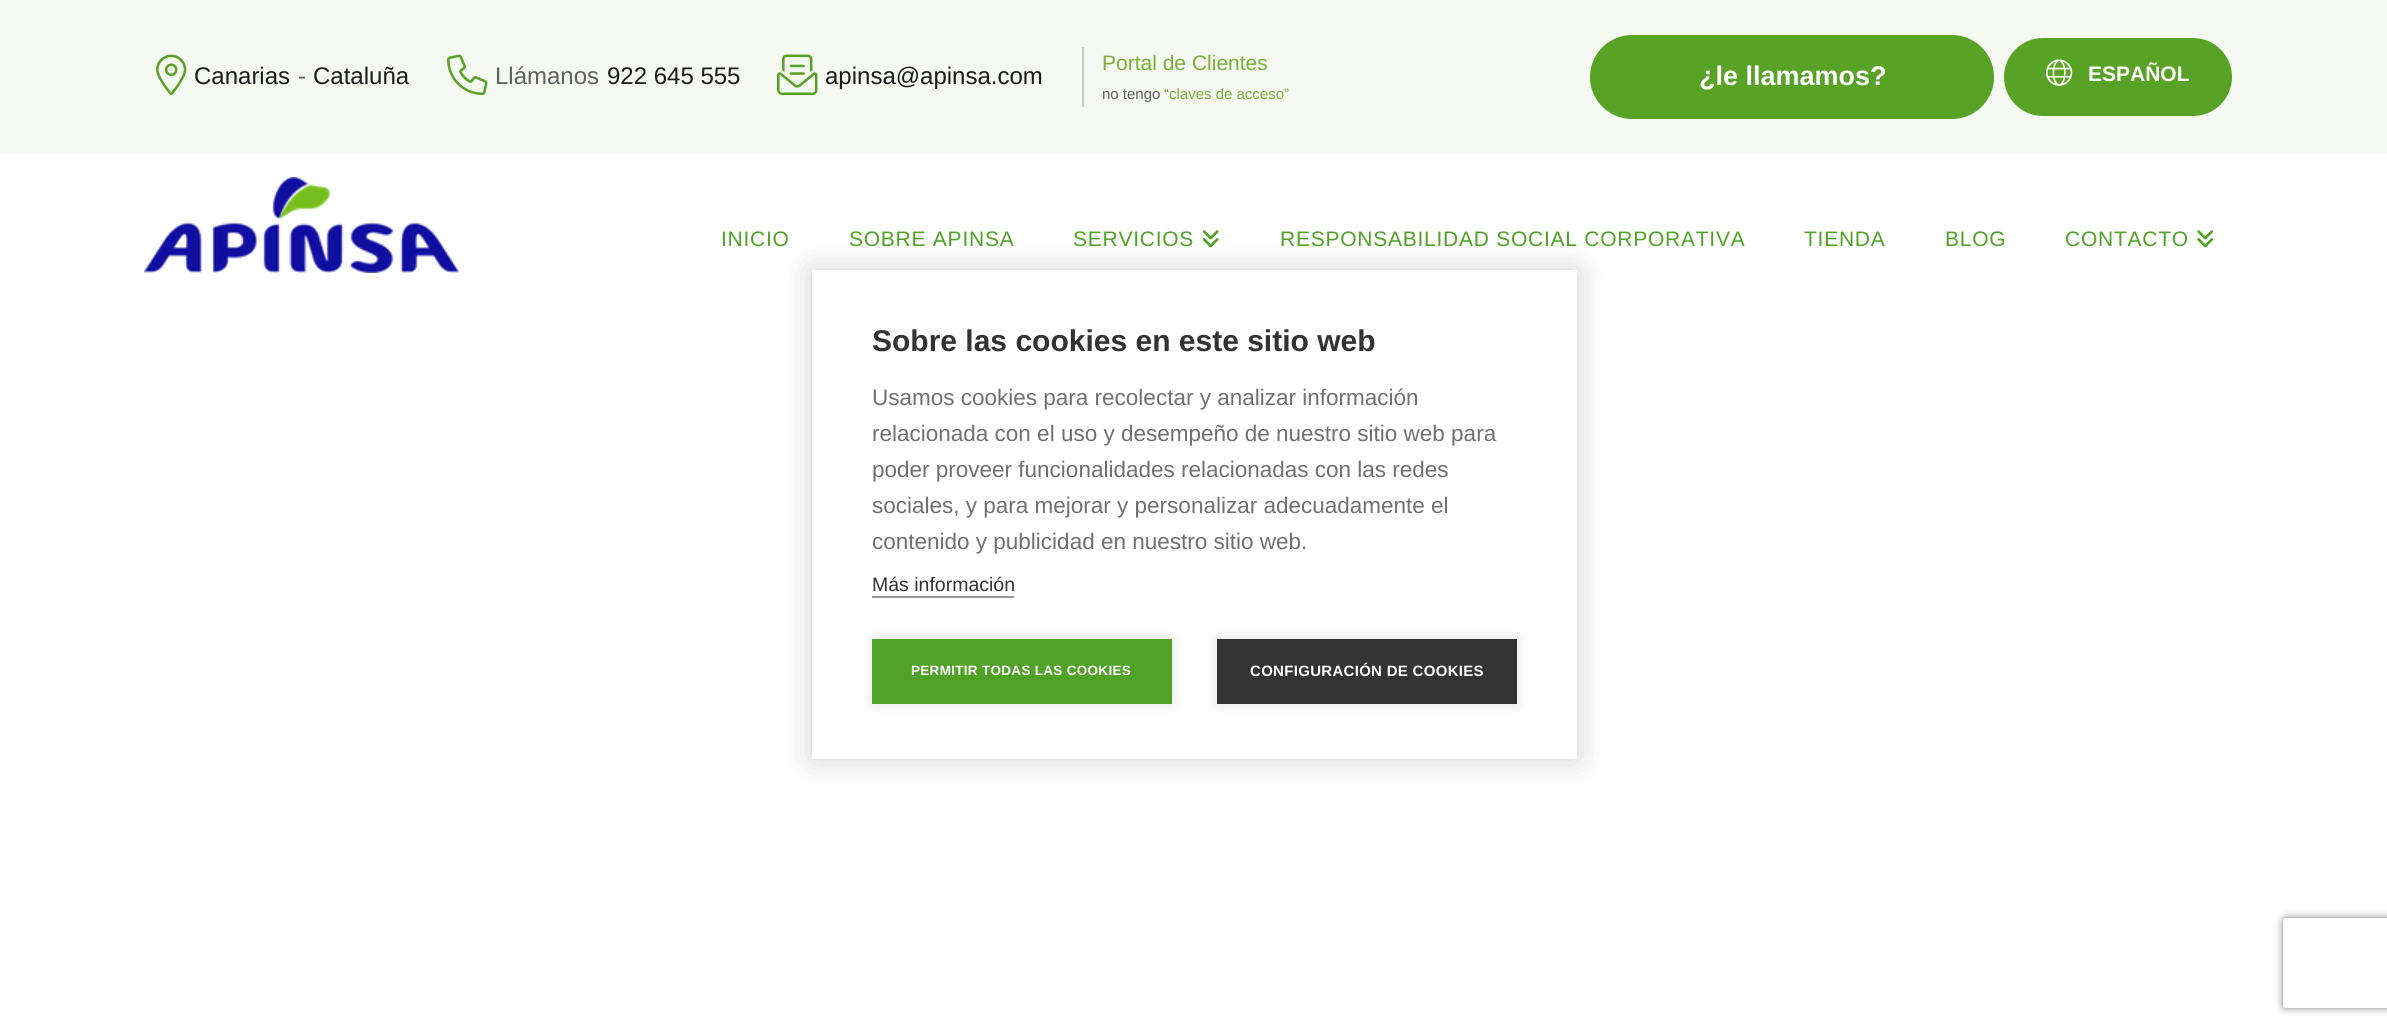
import math
import cairo

surface = cairo.ImageSurface(cairo.FORMAT_RGB24, 2387, 1028)
ctx = cairo.Context(surface)
options = cairo.FontOptions()
options.set_hint_metrics(cairo.HINT_METRICS_OFF)
options.set_hint_style(cairo.HINT_STYLE_NONE)
ctx.set_font_options(options)
ctx.set_miter_limit(4)


def spaced_text(x, y, s, letter, word):
    ctx.move_to(x, y)
    for ch in s:
        ctx.show_text(ch)
        ctx.rel_move_to(letter + word * (ch == ' '), 0)


def round_rect(x, y, w, h, r):
    ctx.new_sub_path()
    for i, (u, v) in enumerate([(x + w - r, y + h - r), (x + r, y + h - r), (x + r, y + r), (x + w - r, y + r)]):
        ctx.arc(u, v, r, i * math.pi / 2, (i + 1) * math.pi / 2)
    ctx.close_path()


def shadow(x, y, w, h, r, blur, alpha):
    ctx.push_group_with_content(cairo.CONTENT_ALPHA)
    ctx.set_operator(cairo.OPERATOR_SOURCE)
    for i in range(15, -16, -2):
        e = blur * i / 6
        if min(w, h) + 2 * e > 0:
            ctx.set_source_rgba(0, 0, 0, alpha * math.erfc((i - 1) / 8.5) / 2)
            round_rect(x - e, y - e, w + 2 * e, h + 2 * e, max(0, min(r + e + blur * .6, min(w, h) / 2 + e)))
            ctx.fill()
    ctx.mask(ctx.pop_group())


def picture(path, x, y, w, h):
    ctx.save()
    ctx.set_source_surface(cairo.ImageSurface.create_from_png(path), x, y)
    ctx.rectangle(x, y, w, h)
    ctx.fill()
    ctx.restore()


ctx.set_source_rgb(1, 1, 1)
ctx.paint()
ctx.set_source_rgb(0.961, 0.969, 0.949)
ctx.rectangle(0, 0, 2387, 153)
ctx.fill()
picture("img1.png", 156, 54, 31, 41)
ctx.select_font_face("Liberation Sans")
ctx.set_font_size(24)
ctx.set_source_rgb(0.106, 0.106, 0.106)
ctx.move_to(194, 84)
ctx.show_text("Canarias")
ctx.set_source_rgb(0.376, 0.376, 0.376)
ctx.move_to(298, 84)
ctx.show_text("-")
ctx.set_source_rgb(0.106, 0.106, 0.106)
ctx.move_to(313, 84)
ctx.show_text("Cataluña")
picture("img2.png", 447, 54, 41, 42)
ctx.set_source_rgb(0.376, 0.376, 0.376)
ctx.move_to(495, 84)
ctx.show_text("Llámanos")
ctx.set_source_rgb(0.106, 0.106, 0.106)
ctx.move_to(607, 84)
ctx.show_text("922 645 555")
picture("img3.png", 777, 54, 41, 42)
ctx.move_to(825, 84)
ctx.show_text("apinsa@apinsa.com")
ctx.set_source_rgb(0.788, 0.788, 0.788)
ctx.rectangle(1082, 47, 2, 60)
ctx.fill()
ctx.set_font_size(21)
ctx.set_source_rgb(0.475, 0.686, 0.212)
ctx.move_to(1102, 70)
ctx.show_text("Portal de Clientes")
ctx.set_font_size(15)
ctx.set_source_rgb(0.376, 0.376, 0.376)
ctx.move_to(1102, 99)
ctx.show_text("no tengo")
ctx.set_source_rgb(0.475, 0.686, 0.212)
ctx.move_to(1164, 99)
ctx.show_text("“claves de acceso”")
ctx.set_source_rgb(0.345, 0.639, 0.149)
round_rect(1590, 35, 404, 84, 42)
ctx.fill()
ctx.select_font_face("Liberation Sans", cairo.FONT_SLANT_NORMAL, cairo.FONT_WEIGHT_BOLD)
ctx.set_font_size(27)
ctx.set_source_rgb(1, 1, 1)
ctx.move_to(1699, 85)
ctx.show_text("¿le llamamos?")
ctx.set_source_rgb(0.345, 0.639, 0.149)
round_rect(2004, 38, 228, 78, 39)
ctx.fill()
picture("img4.png", 2046, 59, 27, 27)
ctx.set_font_size(21)
ctx.set_source_rgb(1, 1, 1)
ctx.move_to(2088, 81)
ctx.show_text("ESPAÑOL")
picture("img5.png", 144, 177, 315, 96)
ctx.select_font_face("Liberation Sans")
ctx.set_source_rgb(0.31, 0.635, 0.149)
spaced_text(721, 246, "INICIO", 0.75, 0)
spaced_text(849, 246, "SOBRE APINSA", 0.75, 0)
spaced_text(1073, 246, "SERVICIOS", 0.75, 0)
picture("img6.png", 1202, 230, 17, 18)
spaced_text(1280, 246, "RESPONSABILIDAD SOCIAL CORPORATIVA", 0.75, 0)
spaced_text(1804, 246, "TIENDA", 0.75, 0)
spaced_text(1945, 246, "BLOG", 0.75, 0)
spaced_text(2065, 246, "CONTACTO", 0.75, 0)
picture("img7.png", 2197, 230, 16, 18)
ctx.set_source_rgb(0, 0, 0)
shadow(812, 270, 765, 489, 0, 15, 0.2)
ctx.set_source_rgb(1, 1, 1)
ctx.rectangle(812, 270, 765, 489)
ctx.fill()
ctx.select_font_face("Liberation Sans", cairo.FONT_SLANT_NORMAL, cairo.FONT_WEIGHT_BOLD)
ctx.set_font_size(30)
ctx.set_source_rgb(0.2, 0.2, 0.2)
ctx.move_to(872, 351)
ctx.show_text("Sobre las cookies en este sitio web")
ctx.select_font_face("Liberation Sans")
ctx.set_font_size(22.5)
ctx.set_source_rgb(0.439, 0.439, 0.439)
ctx.move_to(872, 405)
ctx.show_text("Usamos cookies para recolectar y analizar información")
ctx.move_to(872, 441)
ctx.show_text("relacionada con el uso y desempeño de nuestro sitio web para")
ctx.move_to(872, 477)
ctx.show_text("poder proveer funcionalidades relacionadas con las redes")
ctx.move_to(872, 513)
ctx.show_text("sociales, y para mejorar y personalizar adecuadamente el")
ctx.move_to(872, 549)
ctx.show_text("contenido y publicidad en nuestro sitio web.")
ctx.set_font_size(19.5)
ctx.set_source_rgb(0.2, 0.2, 0.2)
ctx.move_to(872, 591)
ctx.show_text("Más información")
ctx.set_source_rgb(0.6, 0.6, 0.6)
ctx.rectangle(872, 596, 142, 2)
ctx.fill()
ctx.set_source_rgb(0, 0, 0)
shadow(872, 639, 300, 65, 0, 7.5, 0.12)
ctx.set_source_rgb(0.31, 0.635, 0.149)
ctx.rectangle(872, 639, 300, 65)
ctx.fill()
ctx.select_font_face("Liberation Sans", cairo.FONT_SLANT_NORMAL, cairo.FONT_WEIGHT_BOLD)
ctx.set_font_size(13.5)
ctx.set_source_rgb(1, 1, 1)
spaced_text(911, 675, "PERMITIR TODAS LAS COOKIES", 0.3, 0)
ctx.set_source_rgb(0, 0, 0)
shadow(1217, 639, 300, 65, 0, 7.5, 0.12)
ctx.set_source_rgb(0.2, 0.2, 0.2)
ctx.rectangle(1217, 639, 300, 65)
ctx.fill()
ctx.set_font_size(15)
ctx.set_source_rgb(1, 1, 1)
spaced_text(1250, 676, "CONFIGURACIÓN DE COOKIES", 0.3, 0)
ctx.save()
ctx.set_fill_rule(cairo.FILL_RULE_EVEN_ODD)
ctx.new_path()
ctx.move_to(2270, 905)
ctx.line_to(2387, 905)
ctx.line_to(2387, 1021)
ctx.line_to(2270, 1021)
ctx.close_path()
ctx.move_to(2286, 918)
ctx.line_to(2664, 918)
ctx.curve_to(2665.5, 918, 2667, 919.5, 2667, 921)
ctx.line_to(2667, 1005)
ctx.curve_to(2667, 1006.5, 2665.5, 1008, 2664, 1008)
ctx.line_to(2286, 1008)
ctx.curve_to(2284.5, 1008, 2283, 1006.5, 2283, 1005)
ctx.line_to(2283, 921)
ctx.curve_to(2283, 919.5, 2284.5, 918, 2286, 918)
ctx.close_path()
ctx.clip()
ctx.set_source_rgb(0.502, 0.502, 0.502)
shadow(2283, 918, 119, 90, 3, 4, 1)
ctx.restore()
surface.write_to_png("page.png")
